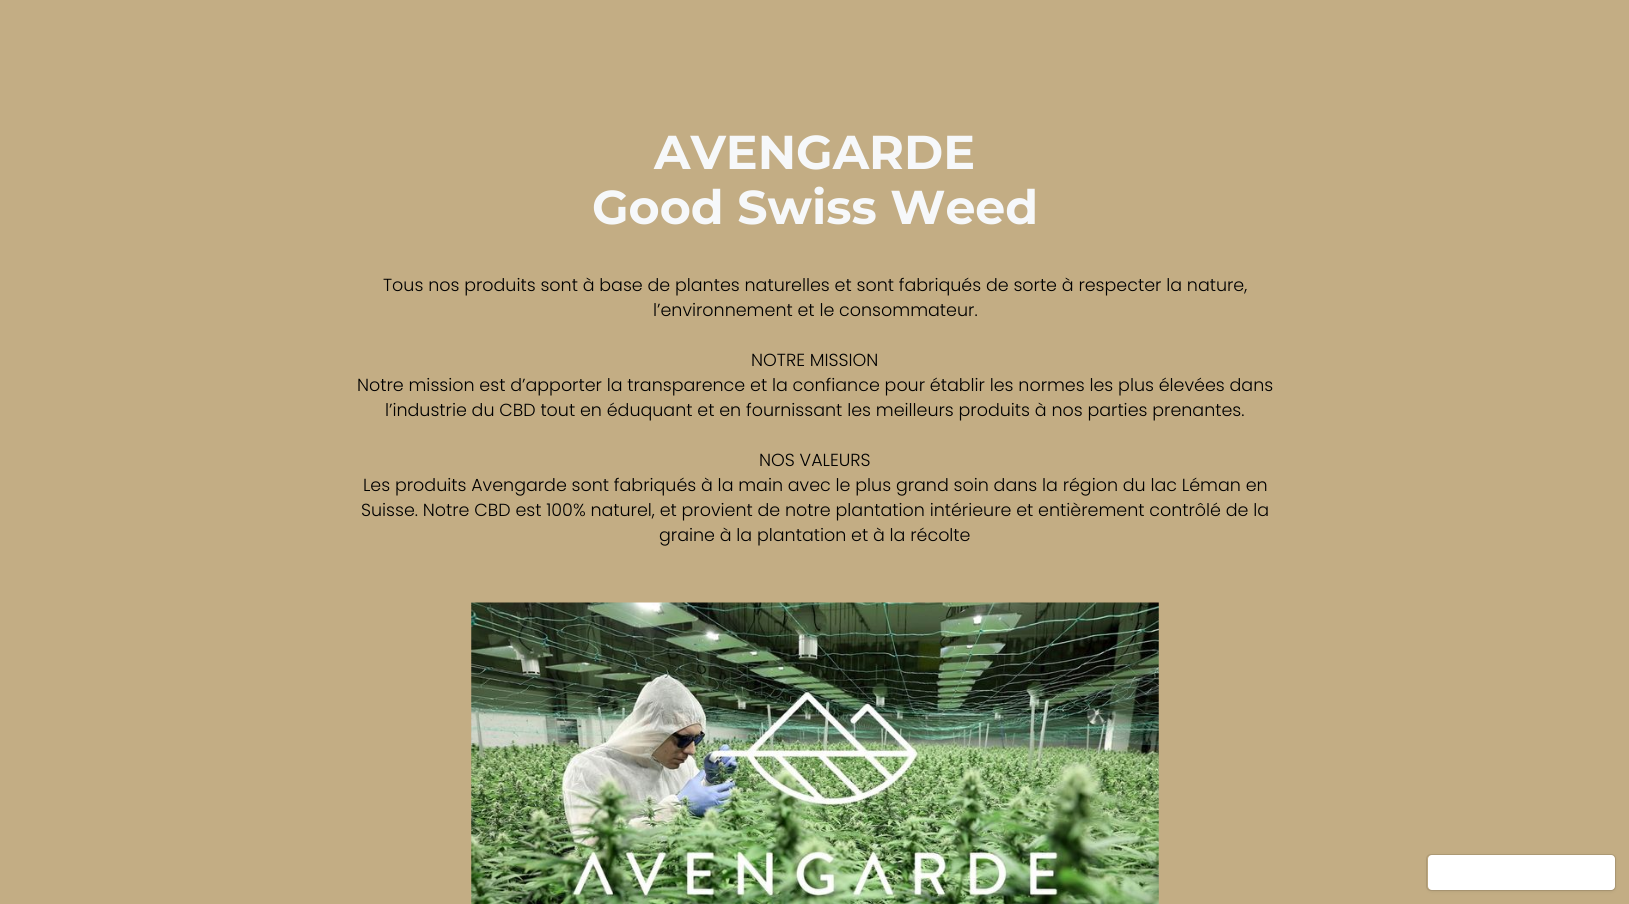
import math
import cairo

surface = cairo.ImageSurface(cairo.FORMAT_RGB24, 1629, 904)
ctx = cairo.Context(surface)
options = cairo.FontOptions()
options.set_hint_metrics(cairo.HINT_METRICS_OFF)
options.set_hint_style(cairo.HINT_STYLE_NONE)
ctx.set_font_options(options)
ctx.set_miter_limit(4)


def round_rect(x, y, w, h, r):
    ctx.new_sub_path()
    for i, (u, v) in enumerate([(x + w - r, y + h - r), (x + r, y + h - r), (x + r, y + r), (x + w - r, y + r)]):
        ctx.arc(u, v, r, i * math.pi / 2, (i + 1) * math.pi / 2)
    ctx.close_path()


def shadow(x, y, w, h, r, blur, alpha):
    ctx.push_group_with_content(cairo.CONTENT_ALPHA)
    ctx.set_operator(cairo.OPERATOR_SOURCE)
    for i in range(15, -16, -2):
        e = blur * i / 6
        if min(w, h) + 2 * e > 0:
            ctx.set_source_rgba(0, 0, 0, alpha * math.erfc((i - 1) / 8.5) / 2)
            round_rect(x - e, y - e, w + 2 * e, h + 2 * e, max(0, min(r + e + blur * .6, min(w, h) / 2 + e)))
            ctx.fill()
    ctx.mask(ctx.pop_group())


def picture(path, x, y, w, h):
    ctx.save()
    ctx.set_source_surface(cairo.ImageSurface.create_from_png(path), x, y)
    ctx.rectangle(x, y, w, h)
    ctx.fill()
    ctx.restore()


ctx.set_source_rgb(0.765, 0.678, 0.518)
ctx.paint()
ctx.select_font_face("Montserrat", cairo.FONT_SLANT_NORMAL, cairo.FONT_WEIGHT_BOLD)
ctx.set_font_size(47.5)
ctx.set_source_rgb(0.961, 0.969, 0.98)
ctx.move_to(654, 169)
ctx.show_text("AVENGARDE")
ctx.move_to(592, 224)
ctx.show_text("Good Swiss Weed")
ctx.select_font_face("Poppins Light")
ctx.set_font_size(17.5)
ctx.set_source_rgb(0, 0, 0)
ctx.move_to(383, 291)
ctx.show_text("Tous nos produits sont à base de plantes naturelles et sont fabriqués de sorte à respecter la nature,")
ctx.move_to(653, 316)
ctx.show_text("l’environnement et le consommateur.")
ctx.move_to(751, 366)
ctx.show_text("NOTRE MISSION")
ctx.move_to(357, 391)
ctx.show_text("Notre mission est d’apporter la transparence et la confiance pour établir les normes les plus élevées dans")
ctx.move_to(385, 416)
ctx.show_text("l’industrie du CBD tout en éduquant et en fournissant les meilleurs produits à nos parties prenantes.")
ctx.move_to(759, 466)
ctx.show_text("NOS VALEURS")
ctx.move_to(363, 491)
ctx.show_text("Les produits Avengarde sont fabriqués à la main avec le plus grand soin dans la région du lac Léman en")
ctx.move_to(361, 516)
ctx.show_text("Suisse. Notre CBD est 100% naturel, et provient de notre plantation intérieure et entièrement contrôlé de la")
ctx.move_to(659, 541)
ctx.show_text("graine à la plantation et à la récolte")
picture("img1.png", 471, 602, 688, 302)
ctx.set_source_rgb(0, 0, 0)
shadow(1428, 856, 187, 35, 4, 2, 0.1)
round_rect(1426.5, 854.5, 189, 36, 4.5)
ctx.set_source_rgba(0, 0, 0, 0.1)
ctx.set_line_width(1)
ctx.stroke()
ctx.set_source_rgb(1, 1, 1)
round_rect(1428, 855, 187, 35, 4)
ctx.fill()
surface.write_to_png("page.png")
